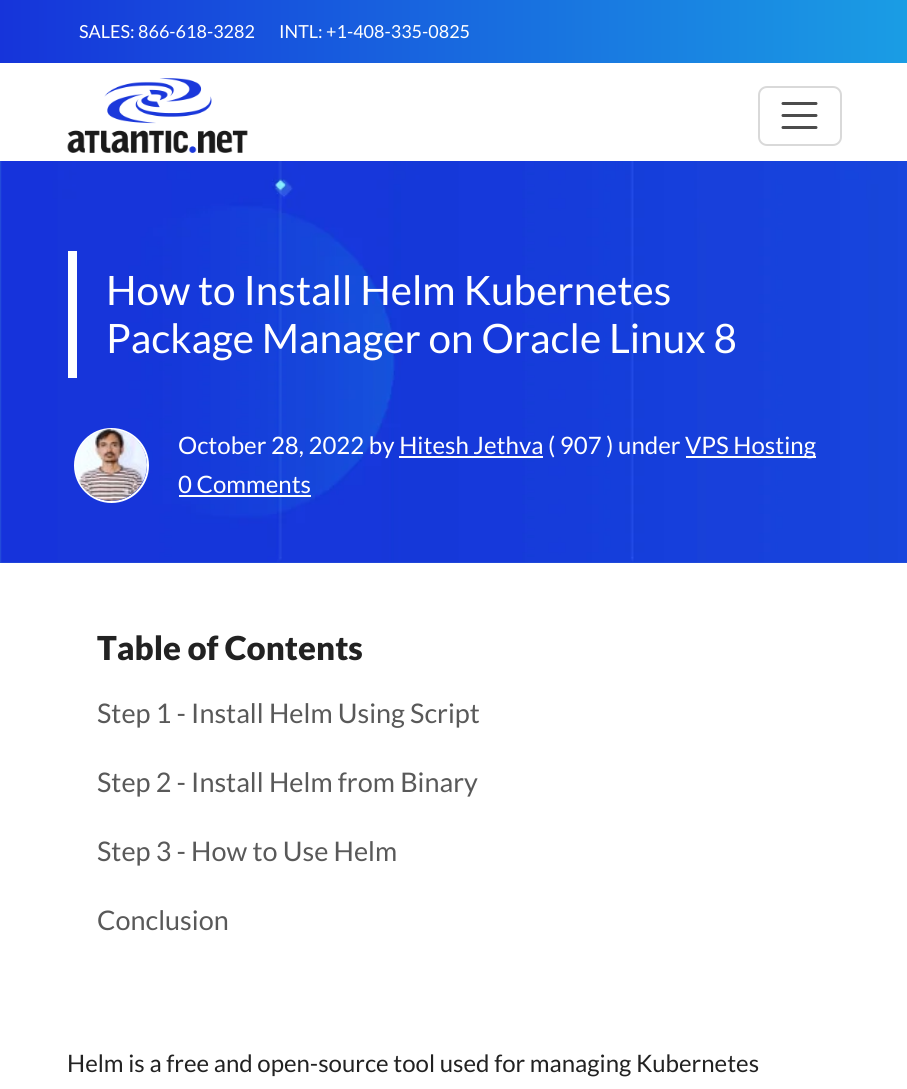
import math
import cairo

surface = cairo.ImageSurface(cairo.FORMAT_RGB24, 907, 1089)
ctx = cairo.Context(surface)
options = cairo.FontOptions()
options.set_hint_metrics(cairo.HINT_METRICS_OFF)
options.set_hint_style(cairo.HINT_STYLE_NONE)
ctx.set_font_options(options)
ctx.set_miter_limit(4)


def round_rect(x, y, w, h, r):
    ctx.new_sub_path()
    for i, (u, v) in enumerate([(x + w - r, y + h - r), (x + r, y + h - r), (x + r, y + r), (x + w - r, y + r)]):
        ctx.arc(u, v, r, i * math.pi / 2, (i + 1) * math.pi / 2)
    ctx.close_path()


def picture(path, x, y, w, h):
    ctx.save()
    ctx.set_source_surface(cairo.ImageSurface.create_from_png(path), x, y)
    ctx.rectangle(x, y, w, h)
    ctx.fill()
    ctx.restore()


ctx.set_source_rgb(1, 1, 1)
ctx.paint()
gradient = cairo.LinearGradient(0, 32, 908, 31)
gradient.add_color_stop_rgba(0, 0.086, 0.204, 0.855, 1)
gradient.add_color_stop_rgba(1, 0.102, 0.616, 0.894, 1)
ctx.set_source(gradient)
ctx.rectangle(0, 0, 907, 63)
ctx.fill()
ctx.select_font_face("Lato")
ctx.set_font_size(18)
ctx.set_source_rgb(1, 1, 1)
ctx.move_to(79, 38)
ctx.show_text("SALES: 866-618-3282")
ctx.move_to(279, 38)
ctx.show_text("INTL: +1-408-335-0825")
picture("img1.png", 67, 78, 181, 75)
round_rect(759, 87, 82, 58, 8)
ctx.set_source_rgb(0.851, 0.851, 0.851)
ctx.stroke()
ctx.new_path()
ctx.move_to(783, 103.5)
ctx.line_to(816, 103.5)
ctx.move_to(783, 115.5)
ctx.line_to(816, 115.5)
ctx.move_to(783, 127.5)
ctx.line_to(816, 127.5)
ctx.set_source_rgb(0.298, 0.298, 0.298)
ctx.set_line_width(3)
ctx.set_line_cap(cairo.LINE_CAP_ROUND)
ctx.stroke()
ctx.set_source_rgb(0.165, 0.341, 0.851)
ctx.rectangle(0, 161, 907, 402)
ctx.fill()
picture("img2.png", 0, 161, 907, 402)
ctx.set_source_rgb(1, 1, 1)
ctx.rectangle(68, 251, 9, 127)
ctx.fill()
ctx.set_font_size(40.5)
ctx.move_to(106, 305)
ctx.show_text("How to Install Helm Kubernetes")
ctx.move_to(106, 353)
ctx.show_text("Package Manager on Oracle Linux 8")
ctx.new_path()
ctx.arc(111.5, 465.5, 36.5, 0, 2 * math.pi)
ctx.set_line_width(2)
ctx.set_line_cap(cairo.LINE_CAP_BUTT)
ctx.stroke()
picture("img3.png", 75, 429, 72, 72)
ctx.set_font_size(24)
ctx.move_to(178, 454)
ctx.show_text("October 28, 2022 by Hitesh Jethva ( 907 ) under")
ctx.rectangle(686, 456, 130, 2)
ctx.fill()
ctx.move_to(685, 454)
ctx.show_text("VPS Hosting")
ctx.rectangle(399, 456, 144, 2)
ctx.fill()
ctx.move_to(178, 493)
ctx.show_text("0 Comments")
ctx.rectangle(179, 495, 132, 2)
ctx.fill()
ctx.select_font_face("Lato Black")
ctx.set_font_size(33)
ctx.set_source_rgb(0.133, 0.133, 0.133)
ctx.move_to(97, 660)
ctx.show_text("Table of Contents")
ctx.select_font_face("Lato")
ctx.set_font_size(27)
ctx.set_source_rgb(0.349, 0.349, 0.349)
ctx.move_to(97, 723)
ctx.show_text("Step 1 - Install Helm Using Script")
ctx.move_to(97, 792)
ctx.show_text("Step 2 - Install Helm from Binary")
ctx.move_to(97, 861)
ctx.show_text("Step 3 - How to Use Helm")
ctx.move_to(97, 930)
ctx.show_text("Conclusion")
ctx.set_font_size(24)
ctx.set_source_rgb(0.133, 0.133, 0.133)
ctx.move_to(67, 1072)
ctx.show_text("Helm is a free and open-source tool used for managing Kubernetes")
surface.write_to_png("page.png")
